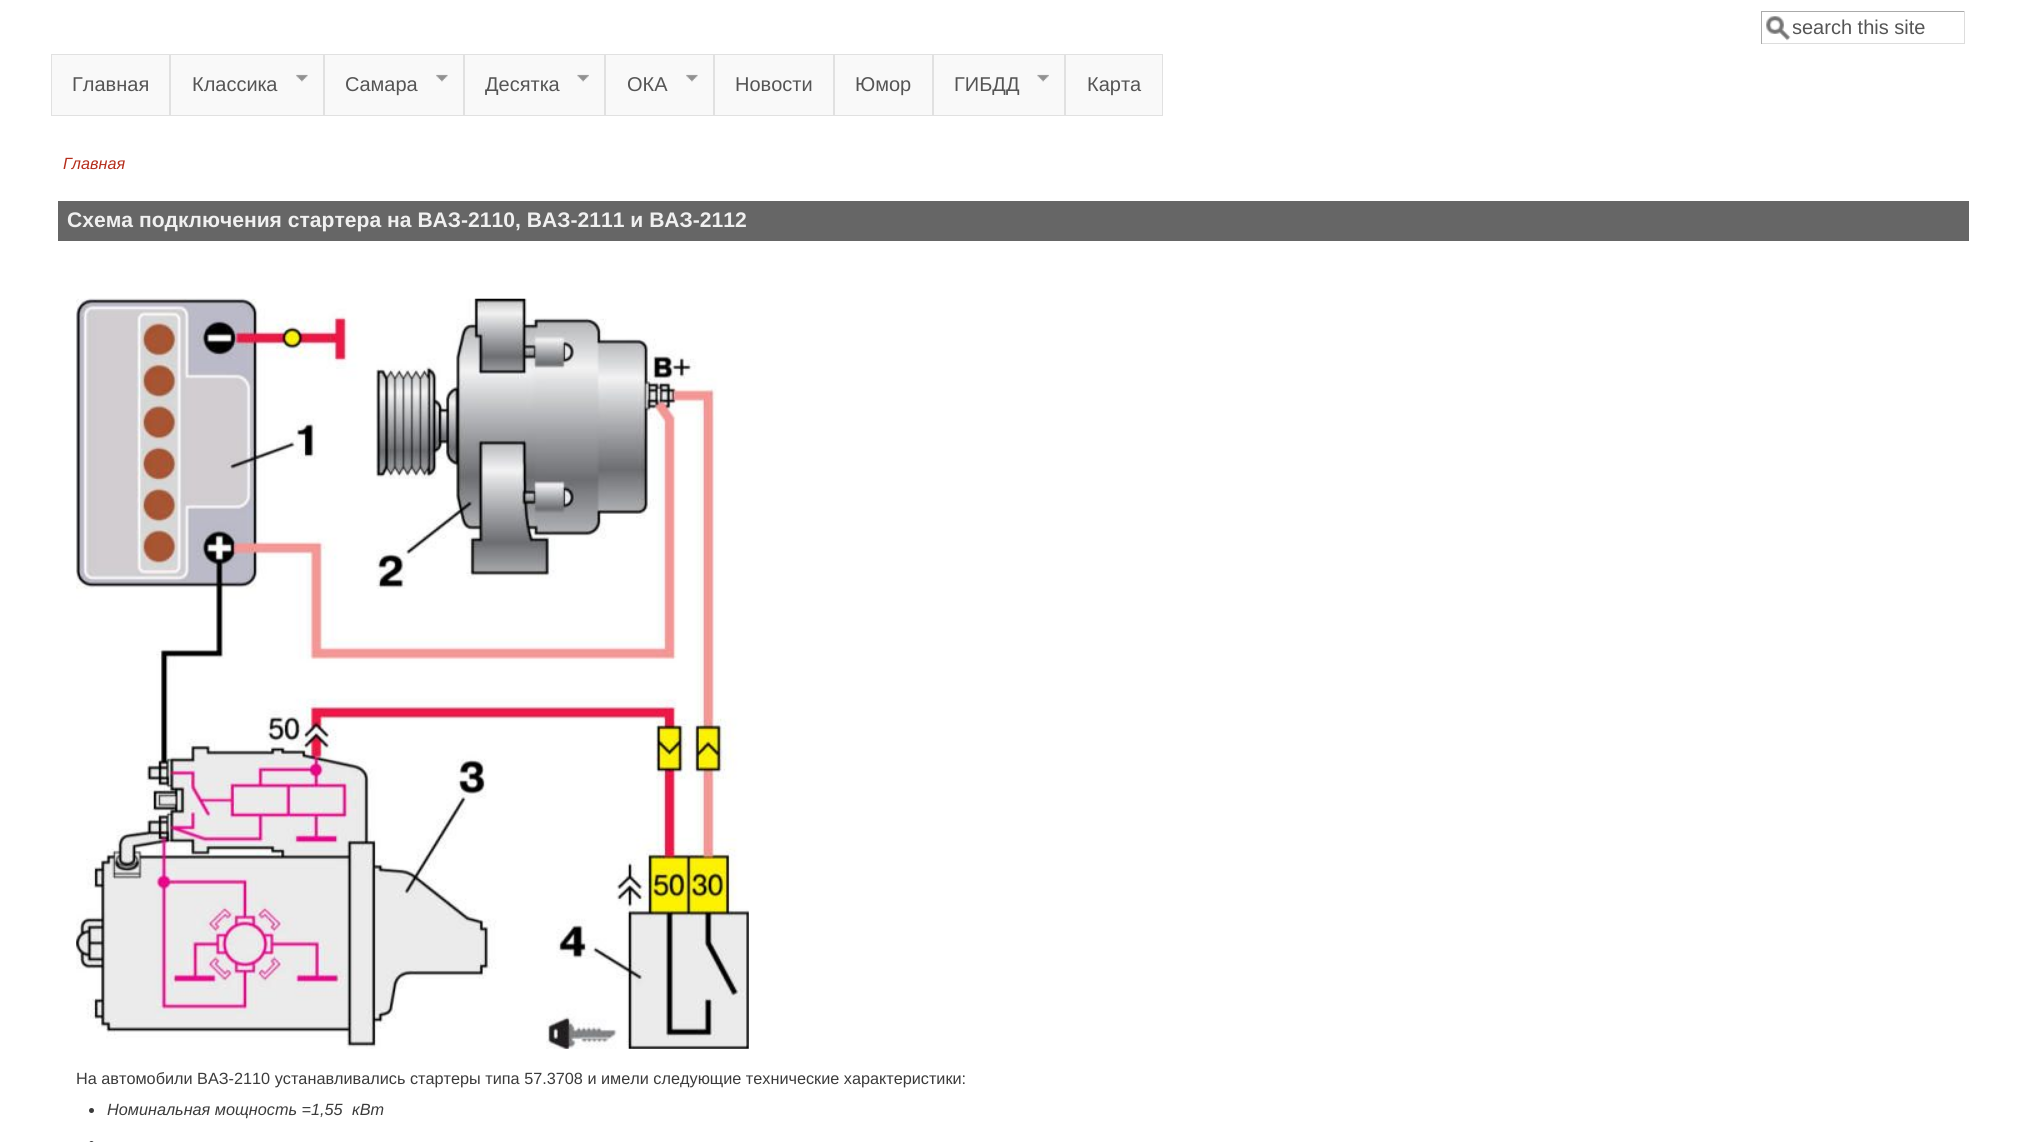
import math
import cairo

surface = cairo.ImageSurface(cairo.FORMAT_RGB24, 2025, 1142)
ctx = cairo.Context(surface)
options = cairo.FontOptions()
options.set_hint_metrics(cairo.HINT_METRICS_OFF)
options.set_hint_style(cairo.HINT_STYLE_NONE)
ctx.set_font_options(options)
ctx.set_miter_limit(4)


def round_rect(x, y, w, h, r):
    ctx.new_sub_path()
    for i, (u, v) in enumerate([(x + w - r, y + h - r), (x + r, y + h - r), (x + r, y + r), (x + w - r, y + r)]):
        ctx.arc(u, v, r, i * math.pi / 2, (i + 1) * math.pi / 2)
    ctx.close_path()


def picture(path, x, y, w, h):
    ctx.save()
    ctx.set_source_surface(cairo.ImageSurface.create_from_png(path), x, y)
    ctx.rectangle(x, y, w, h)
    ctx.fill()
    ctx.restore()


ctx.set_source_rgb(1, 1, 1)
ctx.paint()
picture("img1.png", 1766, 16, 25, 25)
ctx.set_source_rgb(0.667, 0.667, 0.667)
ctx.rectangle(1761, 11, 204, 1)
ctx.fill()
ctx.set_source_rgb(0.867, 0.867, 0.867)
ctx.rectangle(1964, 11, 1, 33)
ctx.fill()
ctx.rectangle(1761, 43, 204, 1)
ctx.fill()
ctx.set_source_rgb(0.667, 0.667, 0.667)
ctx.rectangle(1761, 11, 1, 33)
ctx.fill()
ctx.save()
ctx.rectangle(1793, 16, 166, 23)
ctx.clip()
ctx.select_font_face("Liberation Sans")
ctx.set_font_size(20)
ctx.set_source_rgb(0.333, 0.333, 0.333)
ctx.move_to(1792, 34)
ctx.show_text("search this site")
ctx.restore()
ctx.set_source_rgb(0.976, 0.976, 0.976)
ctx.rectangle(51.5, 54.5, 118, 61)
ctx.fill_preserve()
ctx.set_source_rgb(0.882, 0.882, 0.882)
ctx.set_line_width(1)
ctx.stroke()
ctx.select_font_face("Liberation Sans")
ctx.set_font_size(20)
ctx.set_source_rgb(0.333, 0.333, 0.333)
ctx.move_to(72, 91)
ctx.show_text("Главная")
ctx.set_source_rgb(0.976, 0.976, 0.976)
ctx.rectangle(170.5, 54.5, 153, 61)
ctx.fill_preserve()
ctx.set_source_rgb(0.882, 0.882, 0.882)
ctx.stroke()
ctx.set_source_rgb(0.333, 0.333, 0.333)
ctx.move_to(192, 91)
ctx.show_text("Классика")
picture("img2.png", 296, 74, 12, 8)
ctx.set_source_rgb(0.976, 0.976, 0.976)
ctx.rectangle(324.5, 54.5, 139, 61)
ctx.fill_preserve()
ctx.set_source_rgb(0.882, 0.882, 0.882)
ctx.stroke()
ctx.set_source_rgb(0.333, 0.333, 0.333)
ctx.move_to(345, 91)
ctx.show_text("Самара")
picture("img3.png", 436, 74, 12, 8)
ctx.set_source_rgb(0.976, 0.976, 0.976)
ctx.rectangle(464.5, 54.5, 140, 61)
ctx.fill_preserve()
ctx.set_source_rgb(0.882, 0.882, 0.882)
ctx.stroke()
ctx.set_source_rgb(0.333, 0.333, 0.333)
ctx.move_to(485, 91)
ctx.show_text("Десятка")
picture("img4.png", 577, 74, 12, 8)
ctx.set_source_rgb(0.976, 0.976, 0.976)
ctx.rectangle(605.5, 54.5, 108, 61)
ctx.fill_preserve()
ctx.set_source_rgb(0.882, 0.882, 0.882)
ctx.stroke()
ctx.set_source_rgb(0.333, 0.333, 0.333)
ctx.move_to(627, 91)
ctx.show_text("ОКА")
picture("img3.png", 686, 74, 12, 8)
ctx.set_source_rgb(0.976, 0.976, 0.976)
ctx.rectangle(714.5, 54.5, 119, 61)
ctx.fill_preserve()
ctx.set_source_rgb(0.882, 0.882, 0.882)
ctx.stroke()
ctx.set_source_rgb(0.333, 0.333, 0.333)
ctx.move_to(735, 91)
ctx.show_text("Новости")
ctx.set_source_rgb(0.976, 0.976, 0.976)
ctx.rectangle(834.5, 54.5, 98, 61)
ctx.fill_preserve()
ctx.set_source_rgb(0.882, 0.882, 0.882)
ctx.stroke()
ctx.set_source_rgb(0.333, 0.333, 0.333)
ctx.move_to(855, 91)
ctx.show_text("Юмор")
ctx.set_source_rgb(0.976, 0.976, 0.976)
ctx.rectangle(933.5, 54.5, 131, 61)
ctx.fill_preserve()
ctx.set_source_rgb(0.882, 0.882, 0.882)
ctx.stroke()
ctx.set_source_rgb(0.333, 0.333, 0.333)
ctx.move_to(954, 91)
ctx.show_text("ГИБДД")
picture("img4.png", 1037, 74, 12, 8)
ctx.set_source_rgb(0.976, 0.976, 0.976)
ctx.rectangle(1065.5, 54.5, 97, 61)
ctx.fill_preserve()
ctx.set_source_rgb(0.882, 0.882, 0.882)
ctx.stroke()
ctx.set_source_rgb(0.333, 0.333, 0.333)
ctx.move_to(1087, 91)
ctx.show_text("Карта")
ctx.select_font_face("Liberation Sans", cairo.FONT_SLANT_ITALIC)
ctx.set_font_size(16.25)
ctx.set_source_rgb(0.71, 0.18, 0.11)
ctx.move_to(63, 169)
ctx.show_text("Главная")
ctx.set_source_rgb(0.4, 0.4, 0.4)
ctx.rectangle(58, 201, 1911, 40)
ctx.fill()
ctx.select_font_face("Liberation Sans", cairo.FONT_SLANT_NORMAL, cairo.FONT_WEIGHT_BOLD)
ctx.set_font_size(21.1)
ctx.set_source_rgb(0.941, 0.941, 0.941)
ctx.move_to(67, 227)
ctx.show_text("Схема подключения стартера на ВАЗ-2110, ВАЗ-2111 и ВАЗ-2112")
picture("img5.png", 76, 298, 673, 751)
ctx.select_font_face("Liberation Sans")
ctx.set_font_size(16.25)
ctx.set_source_rgb(0.231, 0.231, 0.231)
ctx.move_to(76, 1084)
ctx.show_text("На автомобили ВАЗ-2110 устанавливались стартеры типа 57.3708 и имели следующие технические характеристики:")
ctx.new_path()
ctx.arc(91.5, 1110.5, 2.5, 0, 2 * math.pi)
ctx.fill()
ctx.select_font_face("Liberation Sans", cairo.FONT_SLANT_ITALIC)
ctx.move_to(107, 1115)
ctx.show_text("Номинальная мощность =1,55")
ctx.move_to(352, 1115)
ctx.show_text("кВт")
round_rect(89, 1141, 5, 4, 2.5)
ctx.fill()
surface.write_to_png("page.png")
